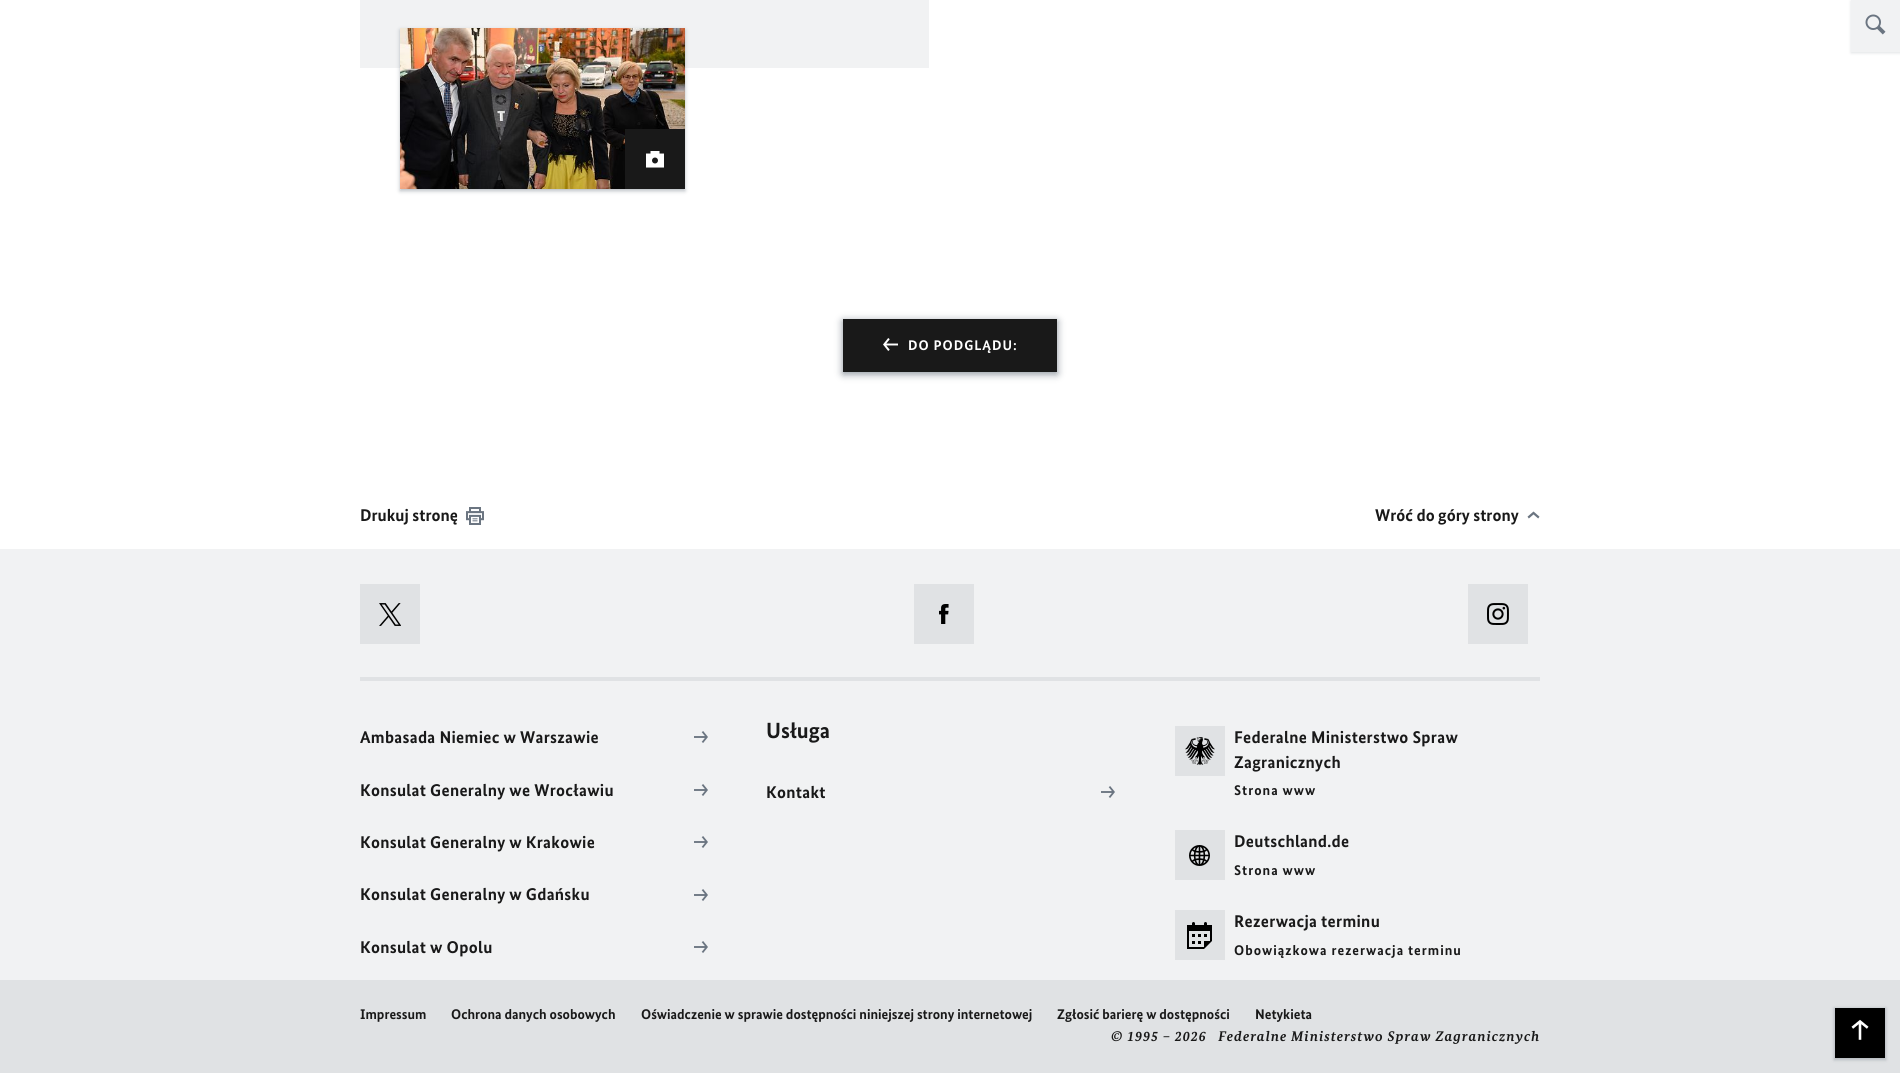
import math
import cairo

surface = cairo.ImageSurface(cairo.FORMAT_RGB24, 1900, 1073)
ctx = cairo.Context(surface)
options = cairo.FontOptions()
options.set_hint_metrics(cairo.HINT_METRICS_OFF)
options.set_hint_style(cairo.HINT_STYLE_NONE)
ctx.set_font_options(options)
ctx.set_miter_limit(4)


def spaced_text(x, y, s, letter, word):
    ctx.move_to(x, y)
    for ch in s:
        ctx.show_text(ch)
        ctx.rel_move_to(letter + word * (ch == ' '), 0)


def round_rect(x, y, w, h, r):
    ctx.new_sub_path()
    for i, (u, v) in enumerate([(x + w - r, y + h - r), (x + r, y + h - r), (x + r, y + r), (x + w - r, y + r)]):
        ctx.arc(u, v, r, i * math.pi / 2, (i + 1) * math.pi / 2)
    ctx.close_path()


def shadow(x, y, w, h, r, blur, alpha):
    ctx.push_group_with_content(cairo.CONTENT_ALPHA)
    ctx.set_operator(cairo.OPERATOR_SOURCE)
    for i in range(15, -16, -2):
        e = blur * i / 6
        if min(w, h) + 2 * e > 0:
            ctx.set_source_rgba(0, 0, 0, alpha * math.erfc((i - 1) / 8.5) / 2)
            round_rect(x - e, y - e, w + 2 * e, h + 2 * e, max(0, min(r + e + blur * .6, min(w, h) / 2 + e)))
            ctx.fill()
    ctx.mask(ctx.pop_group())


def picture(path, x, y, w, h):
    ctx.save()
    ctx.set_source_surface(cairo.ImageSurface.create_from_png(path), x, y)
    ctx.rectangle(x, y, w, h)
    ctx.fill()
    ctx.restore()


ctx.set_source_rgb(1, 1, 1)
ctx.paint()
ctx.set_source_rgb(0.878, 0.886, 0.894)
shadow(1851, 1, 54, 52, 0, 1.5, 1)
ctx.set_source_rgb(0.945, 0.949, 0.953)
ctx.rectangle(1851, 0, 49, 52)
ctx.fill()
picture("img1.png", 1865, 14, 21, 21)
ctx.rectangle(360, 0, 569, 68)
ctx.fill()
ctx.set_source_rgb(0.537, 0.569, 0.604)
shadow(400, 30, 285, 161, 0, 2, 0.6)
picture("img2.png", 400, 28, 285, 161)
ctx.set_source_rgb(0.098, 0.098, 0.098)
ctx.rectangle(625, 129, 60, 60)
ctx.fill()
picture("img3.png", 646, 151, 18, 17)
ctx.set_source_rgb(0.537, 0.569, 0.604)
shadow(843, 321, 214, 53, 0, 4, 1)
ctx.set_source_rgb(0.098, 0.098, 0.098)
ctx.rectangle(843, 319, 214, 53)
ctx.fill()
picture("img4.png", 883, 338, 15, 13)
ctx.select_font_face("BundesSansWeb", cairo.FONT_SLANT_NORMAL, cairo.FONT_WEIGHT_BOLD)
ctx.set_font_size(14)
ctx.set_source_rgb(1, 1, 1)
spaced_text(908, 350, "DO PODGLĄDU:", 1, 0)
ctx.set_font_size(17)
ctx.set_source_rgb(0.098, 0.098, 0.098)
ctx.move_to(360, 521)
ctx.show_text("Drukuj stronę")
picture("img5.png", 466, 507, 18, 18)
ctx.move_to(1375, 521)
ctx.show_text("Wróć do góry strony")
picture("img6.png", 1527, 511, 13, 8)
ctx.set_source_rgb(0.945, 0.949, 0.953)
ctx.rectangle(0, 549, 1900, 431)
ctx.fill()
ctx.set_source_rgb(0.878, 0.886, 0.894)
ctx.rectangle(360, 584, 60, 60)
ctx.fill()
picture("img7.png", 379, 603, 22, 23)
ctx.rectangle(914, 584, 60, 60)
ctx.fill()
picture("img8.png", 939, 604, 10, 20)
ctx.rectangle(1468, 584, 60, 60)
ctx.fill()
picture("img9.png", 1487, 603, 22, 22)
ctx.rectangle(360, 677, 1180, 4)
ctx.fill()
ctx.set_source_rgb(0.098, 0.098, 0.098)
spaced_text(360, 743, "Ambasada Niemiec w Warszawie", 0.3, 0)
picture("img10.png", 694, 731, 14, 12)
spaced_text(360, 796, "Konsulat Generalny we Wrocławiu", 0.3, 0)
picture("img10.png", 694, 784, 14, 12)
spaced_text(360, 848, "Konsulat Generalny w Krakowie", 0.3, 0)
picture("img10.png", 694, 836, 14, 12)
spaced_text(360, 900, "Konsulat Generalny w Gdańsku", 0.3, 0)
picture("img10.png", 694, 889, 14, 12)
spaced_text(360, 953, "Konsulat w Opolu", 0.3, 0)
picture("img10.png", 694, 941, 14, 12)
ctx.set_font_size(22)
ctx.move_to(766, 738)
ctx.show_text("Usługa")
ctx.set_font_size(17)
spaced_text(766, 798, "Kontakt", 0.3, 0)
picture("img10.png", 1101, 786, 14, 12)
ctx.set_source_rgb(0.878, 0.886, 0.894)
ctx.rectangle(1175, 726, 50, 50)
ctx.fill()
picture("img11.png", 1185, 737, 30, 28)
ctx.set_source_rgb(0.098, 0.098, 0.098)
spaced_text(1234, 743, "Federalne Ministerstwo Spraw", 0.3, 0)
spaced_text(1234, 768, "Zagranicznych", 0.3, 0)
ctx.set_font_size(14)
spaced_text(1234, 795, "Strona www", 1, 0)
ctx.set_source_rgb(0.878, 0.886, 0.894)
ctx.rectangle(1175, 830, 50, 50)
ctx.fill()
picture("img12.png", 1189, 845, 21, 21)
ctx.set_font_size(17)
ctx.set_source_rgb(0.098, 0.098, 0.098)
spaced_text(1234, 847, "Deutschland.de", 0.3, 0)
ctx.set_font_size(14)
spaced_text(1234, 875, "Strona www", 1, 0)
ctx.set_source_rgb(0.878, 0.886, 0.894)
ctx.rectangle(1175, 910, 50, 50)
ctx.fill()
picture("img13.png", 1187, 922, 25, 27)
ctx.set_font_size(17)
ctx.set_source_rgb(0.098, 0.098, 0.098)
spaced_text(1234, 927, "Rezerwacja terminu", 0.3, 0)
ctx.set_font_size(14)
spaced_text(1234, 955, "Obowiązkowa rezerwacja terminu", 1, 0)
ctx.set_source_rgb(0.878, 0.886, 0.894)
ctx.rectangle(0, 980, 1900, 93)
ctx.fill()
ctx.set_source_rgb(0.098, 0.098, 0.098)
ctx.move_to(360, 1019)
ctx.show_text("Impressum")
ctx.move_to(451, 1019)
ctx.show_text("Ochrona danych osobowych")
ctx.move_to(641, 1019)
ctx.show_text("Oświadczenie w sprawie dostępności niniejszej strony internetowej")
ctx.move_to(1057, 1019)
ctx.show_text("Zgłosić barierę w dostępności")
ctx.move_to(1255, 1019)
ctx.show_text("Netykieta")
ctx.select_font_face("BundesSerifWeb", cairo.FONT_SLANT_ITALIC, cairo.FONT_WEIGHT_BOLD)
spaced_text(1111, 1041, "© 1995 – 2026   Federalne Ministerstwo Spraw Zagranicznych", 1, 0)
ctx.set_source_rgb(0.537, 0.569, 0.604)
shadow(1834, 1008, 52, 52, 0, 1.5, 0.5)
ctx.set_source_rgb(0, 0, 0)
ctx.rectangle(1835, 1008, 50, 50)
ctx.fill()
picture("img14.png", 1851, 1019, 18, 21)
surface.write_to_png("page.png")
